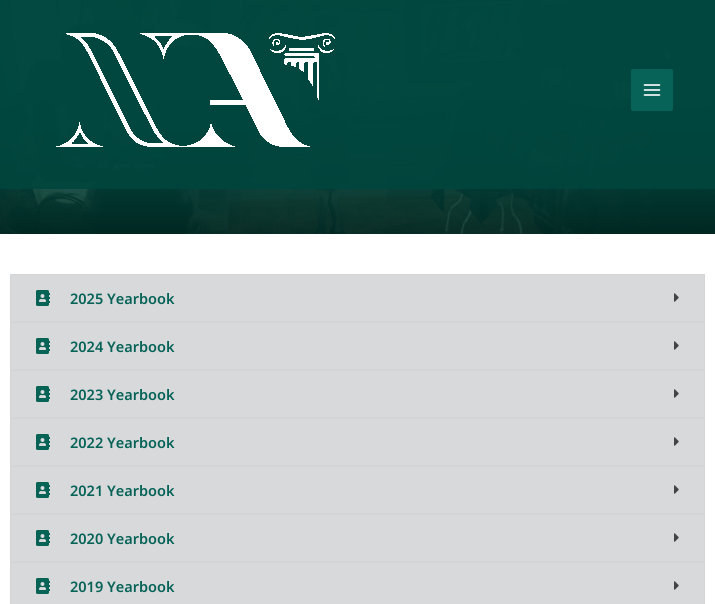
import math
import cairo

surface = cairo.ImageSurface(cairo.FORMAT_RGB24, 715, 604)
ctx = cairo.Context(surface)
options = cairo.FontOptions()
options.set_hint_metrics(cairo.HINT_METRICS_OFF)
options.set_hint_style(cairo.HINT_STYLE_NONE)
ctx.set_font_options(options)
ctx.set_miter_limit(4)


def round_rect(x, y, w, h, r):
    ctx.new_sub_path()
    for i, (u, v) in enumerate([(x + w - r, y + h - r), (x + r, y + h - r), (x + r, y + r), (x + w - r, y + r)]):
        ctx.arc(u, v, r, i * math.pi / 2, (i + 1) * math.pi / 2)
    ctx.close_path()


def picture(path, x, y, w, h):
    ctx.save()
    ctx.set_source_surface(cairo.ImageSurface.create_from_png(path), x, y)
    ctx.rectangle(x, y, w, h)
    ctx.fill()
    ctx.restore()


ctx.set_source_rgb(1, 1, 1)
ctx.paint()
picture("img3.png", 0, 0, 715, 234)
ctx.set_source_rgba(0, 0.271, 0.239, 0.9)
ctx.rectangle(0, 0, 715, 189)
ctx.fill()
picture("img1.png", 56, 33, 279, 114)
ctx.set_source_rgb(0.031, 0.388, 0.341)
round_rect(631, 69, 42, 42, 2)
ctx.fill()
picture("img2.png", 643, 84, 18, 12)
ctx.set_source_rgb(0.847, 0.851, 0.859)
ctx.rectangle(10.5, 274.5, 694, 47)
ctx.fill_preserve()
ctx.set_source_rgb(0.831, 0.835, 0.843)
ctx.set_line_width(1)
ctx.stroke()
picture("img4.png", 36, 290, 14, 16)
ctx.select_font_face("Noto Sans SemiBold")
ctx.set_font_size(14.5)
ctx.set_source_rgb(0.031, 0.388, 0.341)
ctx.move_to(70, 304)
ctx.show_text("2025 Yearbook")
picture("img5.png", 674, 293, 5, 9)
ctx.set_source_rgb(0.847, 0.851, 0.859)
ctx.rectangle(10.5, 322.5, 694, 47)
ctx.fill_preserve()
ctx.set_source_rgb(0.831, 0.835, 0.843)
ctx.stroke()
picture("img4.png", 36, 338, 14, 16)
ctx.set_source_rgb(0.031, 0.388, 0.341)
ctx.move_to(70, 352)
ctx.show_text("2024 Yearbook")
picture("img5.png", 674, 341, 5, 9)
ctx.set_source_rgb(0.847, 0.851, 0.859)
ctx.rectangle(10.5, 370.5, 694, 47)
ctx.fill_preserve()
ctx.set_source_rgb(0.831, 0.835, 0.843)
ctx.stroke()
picture("img4.png", 36, 386, 14, 16)
ctx.set_source_rgb(0.031, 0.388, 0.341)
ctx.move_to(70, 400)
ctx.show_text("2023 Yearbook")
picture("img5.png", 674, 389, 5, 9)
ctx.set_source_rgb(0.847, 0.851, 0.859)
ctx.rectangle(10.5, 418.5, 694, 47)
ctx.fill_preserve()
ctx.set_source_rgb(0.831, 0.835, 0.843)
ctx.stroke()
picture("img4.png", 36, 434, 14, 16)
ctx.set_source_rgb(0.031, 0.388, 0.341)
ctx.move_to(70, 448)
ctx.show_text("2022 Yearbook")
picture("img5.png", 674, 437, 5, 9)
ctx.set_source_rgb(0.847, 0.851, 0.859)
ctx.rectangle(10.5, 466.5, 694, 47)
ctx.fill_preserve()
ctx.set_source_rgb(0.831, 0.835, 0.843)
ctx.stroke()
picture("img4.png", 36, 482, 14, 16)
ctx.set_source_rgb(0.031, 0.388, 0.341)
ctx.move_to(70, 496)
ctx.show_text("2021 Yearbook")
picture("img5.png", 674, 485, 5, 9)
ctx.set_source_rgb(0.847, 0.851, 0.859)
ctx.rectangle(10.5, 514.5, 694, 47)
ctx.fill_preserve()
ctx.set_source_rgb(0.831, 0.835, 0.843)
ctx.stroke()
picture("img4.png", 36, 530, 14, 16)
ctx.set_source_rgb(0.031, 0.388, 0.341)
ctx.move_to(70, 544)
ctx.show_text("2020 Yearbook")
picture("img5.png", 674, 533, 5, 9)
ctx.set_source_rgb(0.847, 0.851, 0.859)
ctx.rectangle(10.5, 562.5, 694, 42)
ctx.fill_preserve()
ctx.set_source_rgb(0.831, 0.835, 0.843)
ctx.stroke()
picture("img4.png", 36, 578, 14, 16)
ctx.set_source_rgb(0.031, 0.388, 0.341)
ctx.move_to(70, 592)
ctx.show_text("2019 Yearbook")
picture("img5.png", 674, 581, 5, 9)
surface.write_to_png("page.png")
